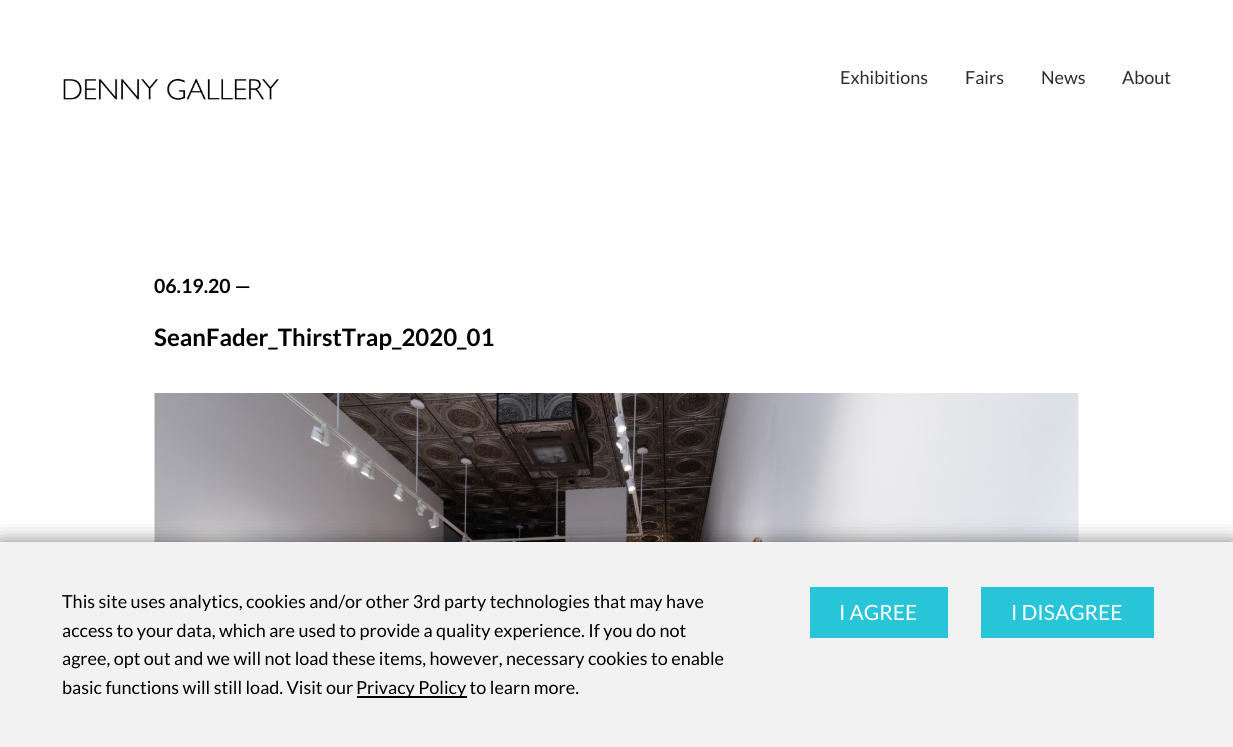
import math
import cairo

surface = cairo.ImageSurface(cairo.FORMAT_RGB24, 1233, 747)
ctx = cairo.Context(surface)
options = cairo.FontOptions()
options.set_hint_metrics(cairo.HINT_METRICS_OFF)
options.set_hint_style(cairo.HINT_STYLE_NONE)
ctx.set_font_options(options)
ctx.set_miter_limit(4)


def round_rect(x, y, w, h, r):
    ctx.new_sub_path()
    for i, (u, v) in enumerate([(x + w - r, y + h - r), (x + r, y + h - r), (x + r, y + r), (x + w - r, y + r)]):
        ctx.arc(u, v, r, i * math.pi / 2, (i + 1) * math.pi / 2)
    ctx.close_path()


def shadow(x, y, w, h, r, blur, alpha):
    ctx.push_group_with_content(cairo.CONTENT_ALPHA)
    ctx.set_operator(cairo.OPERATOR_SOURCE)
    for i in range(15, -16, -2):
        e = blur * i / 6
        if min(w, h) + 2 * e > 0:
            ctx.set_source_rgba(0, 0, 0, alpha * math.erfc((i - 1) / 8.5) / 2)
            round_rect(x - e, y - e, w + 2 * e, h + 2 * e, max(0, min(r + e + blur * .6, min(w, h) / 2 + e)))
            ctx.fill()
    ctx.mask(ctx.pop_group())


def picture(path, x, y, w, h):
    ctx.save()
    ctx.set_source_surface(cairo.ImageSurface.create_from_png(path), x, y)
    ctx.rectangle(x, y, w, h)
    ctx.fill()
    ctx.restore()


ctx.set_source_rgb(1, 1, 1)
ctx.paint()
picture("img1.png", 63, 78, 216, 22)
ctx.select_font_face("Lato")
ctx.set_font_size(18)
ctx.set_source_rgb(0.173, 0.176, 0.18)
ctx.move_to(840, 84)
ctx.show_text("Exhibitions")
ctx.move_to(965, 84)
ctx.show_text("Fairs")
ctx.move_to(1041, 84)
ctx.show_text("News")
ctx.move_to(1122, 84)
ctx.show_text("About")
ctx.select_font_face("Lato", cairo.FONT_SLANT_NORMAL, cairo.FONT_WEIGHT_BOLD)
ctx.set_font_size(19.5)
ctx.set_source_rgb(0, 0, 0)
ctx.move_to(154, 293)
ctx.show_text("06.19.20 —")
ctx.set_font_size(24)
ctx.move_to(154, 346)
ctx.show_text("SeanFader_ThirstTrap_2020_01")
picture("img2.png", 154, 393, 925, 149)
ctx.set_source_rgb(0, 0, 0)
shadow(0, 542, 1233, 205, 0, 10, 0.5)
ctx.set_source_rgb(0.949, 0.949, 0.949)
ctx.rectangle(0, 542, 1233, 205)
ctx.fill()
ctx.select_font_face("Lato")
ctx.set_font_size(18)
ctx.set_source_rgb(0, 0, 0)
ctx.move_to(62, 608)
ctx.show_text("This site uses analytics, cookies and/or other 3rd party technologies that may have")
ctx.move_to(62, 637)
ctx.show_text("access to your data, which are used to provide a quality experience. If you do not")
ctx.move_to(62, 665)
ctx.show_text("agree, opt out and we will not load these items, however, necessary cookies to enable")
ctx.move_to(62, 694)
ctx.show_text("basic functions will still load. Visit our")
ctx.rectangle(357, 696, 110, 2)
ctx.fill()
ctx.move_to(356, 694)
ctx.show_text("Privacy Policy to learn more.")
ctx.set_source_rgb(0.157, 0.769, 0.847)
ctx.rectangle(810, 587, 138, 51)
ctx.fill()
ctx.set_font_size(21)
ctx.set_source_rgb(1, 1, 1)
ctx.move_to(839, 620)
ctx.show_text("I AGREE")
ctx.set_source_rgb(0.157, 0.769, 0.847)
ctx.rectangle(981, 587, 173, 51)
ctx.fill()
ctx.set_source_rgb(1, 1, 1)
ctx.move_to(1011, 620)
ctx.show_text("I DISAGREE")
surface.write_to_png("page.png")
